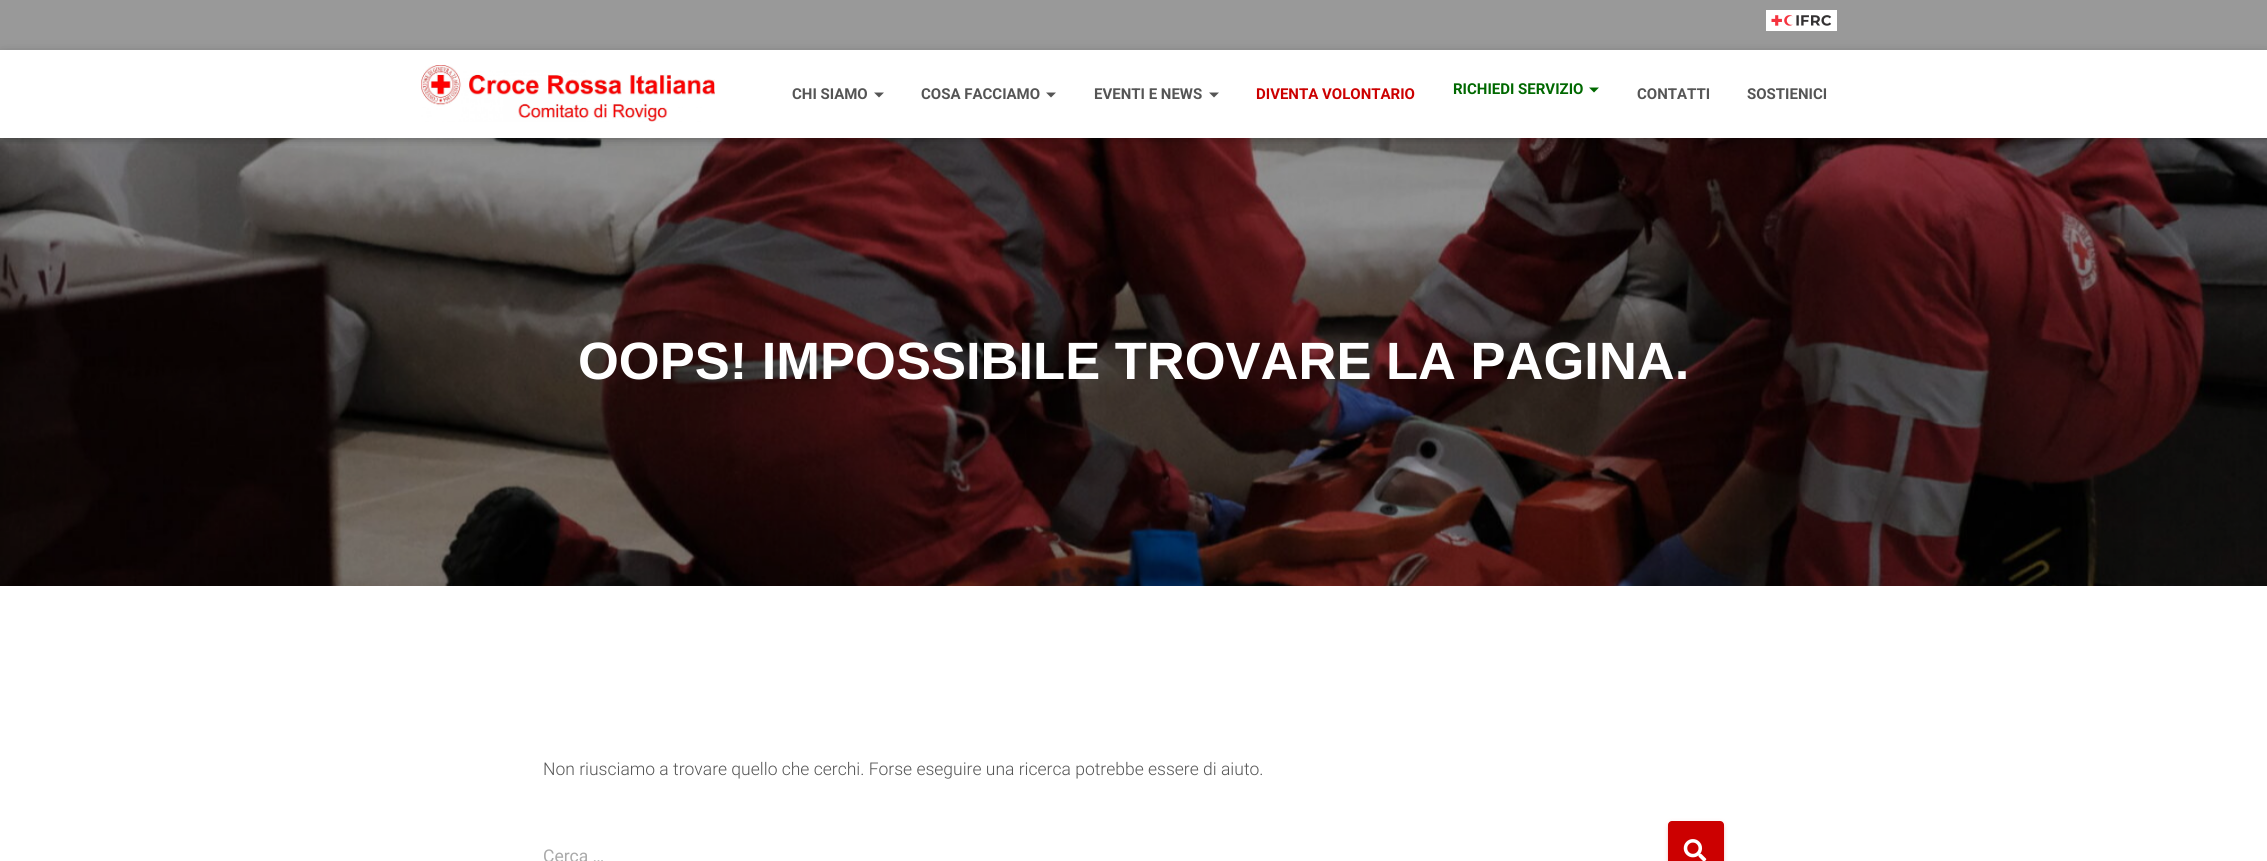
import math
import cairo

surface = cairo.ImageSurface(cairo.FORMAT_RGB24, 2267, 861)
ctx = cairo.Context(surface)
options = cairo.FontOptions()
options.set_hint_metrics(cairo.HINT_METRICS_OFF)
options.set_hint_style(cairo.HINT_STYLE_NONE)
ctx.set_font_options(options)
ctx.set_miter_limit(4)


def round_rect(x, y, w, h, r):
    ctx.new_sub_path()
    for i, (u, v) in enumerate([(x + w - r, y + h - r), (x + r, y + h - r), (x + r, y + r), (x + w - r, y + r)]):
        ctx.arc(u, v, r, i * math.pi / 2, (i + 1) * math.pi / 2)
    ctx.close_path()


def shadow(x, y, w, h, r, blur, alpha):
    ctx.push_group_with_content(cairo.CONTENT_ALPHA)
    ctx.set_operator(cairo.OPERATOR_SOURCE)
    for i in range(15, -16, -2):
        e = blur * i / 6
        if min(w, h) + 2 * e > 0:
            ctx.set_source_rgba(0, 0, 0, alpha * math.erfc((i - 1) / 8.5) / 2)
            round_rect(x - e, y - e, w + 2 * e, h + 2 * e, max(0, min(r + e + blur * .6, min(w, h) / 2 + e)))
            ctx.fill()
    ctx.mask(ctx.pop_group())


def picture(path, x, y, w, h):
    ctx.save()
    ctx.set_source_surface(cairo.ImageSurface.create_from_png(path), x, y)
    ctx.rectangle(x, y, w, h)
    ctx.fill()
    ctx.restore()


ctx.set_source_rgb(1, 1, 1)
ctx.paint()
ctx.set_source_rgb(0.6, 0.6, 0.6)
ctx.rectangle(0, 0, 2267, 50)
ctx.fill()
picture("img1.png", 1766, 10, 71, 21)
picture("img3.png", 0, 138, 2267, 448)
ctx.set_source_rgb(0, 0, 0)
shadow(3, 58, 2262, 82, 0, 3, 0.1)
shadow(0, 51, 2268, 88, 0, 6, 0.12)
shadow(8, 59, 2252, 72, 0, 6, 0.42)
ctx.set_source_rgb(1, 1, 1)
ctx.rectangle(0, 50, 2267, 88)
ctx.fill()
picture("img2.png", 421, 65, 294, 57)
ctx.select_font_face("Roboto", cairo.FONT_SLANT_NORMAL, cairo.FONT_WEIGHT_BOLD)
ctx.set_font_size(15)
ctx.set_source_rgb(0.333, 0.333, 0.333)
ctx.move_to(792, 99)
ctx.show_text("CHI SIAMO")
ctx.new_path()
ctx.move_to(874, 92.5)
ctx.line_to(884, 92.5)
ctx.line_to(879, 97.5)
ctx.close_path()
ctx.fill()
ctx.move_to(921, 99)
ctx.show_text("COSA FACCIAMO")
ctx.new_path()
ctx.move_to(1046, 92.5)
ctx.line_to(1056, 92.5)
ctx.line_to(1051, 97.5)
ctx.close_path()
ctx.fill()
ctx.move_to(1094, 99)
ctx.show_text("EVENTI E NEWS")
ctx.new_path()
ctx.move_to(1209, 92.5)
ctx.line_to(1219, 92.5)
ctx.line_to(1214, 97.5)
ctx.close_path()
ctx.fill()
ctx.set_source_rgb(0.8, 0, 0)
ctx.move_to(1256, 99)
ctx.show_text("DIVENTA VOLONTARIO")
ctx.set_source_rgb(0, 0.408, 0)
ctx.move_to(1453, 94)
ctx.show_text("RICHIEDI SERVIZIO")
ctx.new_path()
ctx.move_to(1589, 87.5)
ctx.line_to(1599, 87.5)
ctx.line_to(1594, 92.5)
ctx.close_path()
ctx.fill()
ctx.set_source_rgb(0.333, 0.333, 0.333)
ctx.move_to(1637, 99)
ctx.show_text("CONTATTI")
ctx.move_to(1747, 99)
ctx.show_text("SOSTIENICI")
ctx.select_font_face("Liberation Sans", cairo.FONT_SLANT_NORMAL, cairo.FONT_WEIGHT_BOLD)
ctx.set_font_size(52.5)
ctx.set_source_rgb(1, 1, 1)
ctx.move_to(578, 379)
ctx.show_text("OOPS! IMPOSSIBILE TROVARE LA PAGINA.")
ctx.select_font_face("Roboto Light")
ctx.set_font_size(17.5)
ctx.set_source_rgb(0.333, 0.333, 0.333)
ctx.move_to(543, 775)
ctx.show_text("Non riusciamo a trovare quello che cerchi. Forse eseguire una ricerca potrebbe essere di aiuto.")
ctx.set_source_rgb(0.8, 0, 0)
shadow(1668, 823, 56, 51, 4, 3, 0.12)
shadow(1668, 824, 56, 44, 4, 1, 0.14)
ctx.set_source_rgb(0.8, 0, 0)
round_rect(1668, 821, 56, 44, 4)
ctx.fill()
ctx.select_font_face("Roboto")
ctx.set_source_rgb(0.667, 0.667, 0.667)
ctx.move_to(543, 862)
ctx.show_text("Cerca …")
picture("img4.png", 1683, 839, 24, 22)
surface.write_to_png("page.png")
